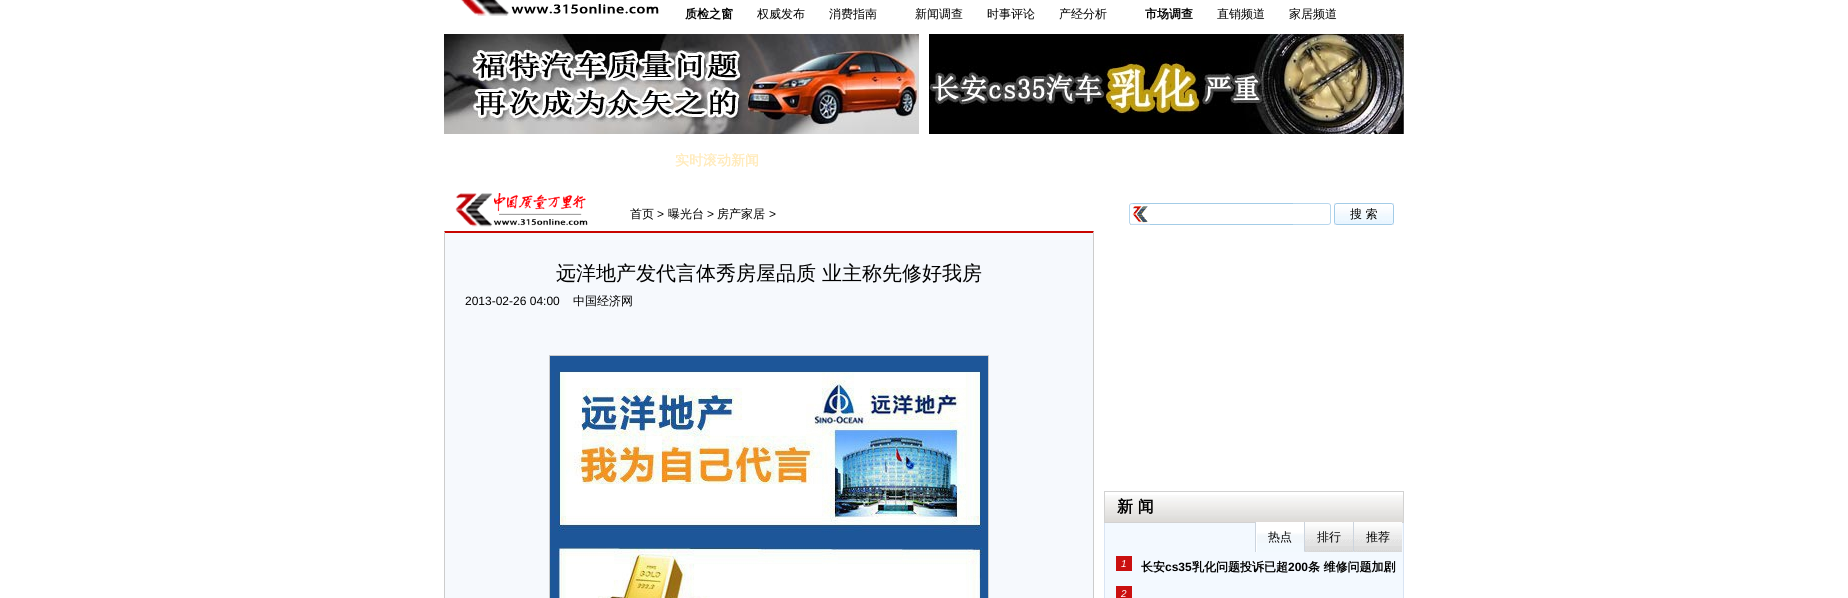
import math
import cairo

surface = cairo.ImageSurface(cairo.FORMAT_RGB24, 1848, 598)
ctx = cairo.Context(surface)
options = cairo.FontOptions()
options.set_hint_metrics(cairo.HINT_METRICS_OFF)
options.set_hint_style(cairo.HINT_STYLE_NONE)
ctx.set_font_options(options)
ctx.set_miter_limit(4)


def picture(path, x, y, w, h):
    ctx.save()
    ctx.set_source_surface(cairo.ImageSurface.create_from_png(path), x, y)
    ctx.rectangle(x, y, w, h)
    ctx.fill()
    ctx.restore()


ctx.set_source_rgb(1, 1, 1)
ctx.paint()
picture("img1.png", 460, 0, 199, 16)
ctx.select_font_face("WenQuanYi Zen Hei", cairo.FONT_SLANT_NORMAL, cairo.FONT_WEIGHT_BOLD)
ctx.set_font_size(12)
ctx.set_source_rgb(0, 0, 0)
ctx.move_to(685, 18)
ctx.show_text("质检之窗")
ctx.select_font_face("WenQuanYi Zen Hei Medium")
ctx.move_to(757, 18)
ctx.show_text("权威发布")
ctx.move_to(829, 18)
ctx.show_text("消费指南")
ctx.move_to(915, 18)
ctx.show_text("新闻调查")
ctx.move_to(987, 18)
ctx.show_text("时事评论")
ctx.move_to(1059, 18)
ctx.show_text("产经分析")
ctx.select_font_face("WenQuanYi Zen Hei", cairo.FONT_SLANT_NORMAL, cairo.FONT_WEIGHT_BOLD)
ctx.move_to(1145, 18)
ctx.show_text("市场调查")
ctx.select_font_face("WenQuanYi Zen Hei Medium")
ctx.move_to(1217, 18)
ctx.show_text("直销频道")
ctx.move_to(1289, 18)
ctx.show_text("家居频道")
picture("img2.png", 444, 34, 475, 100)
picture("img3.png", 929, 34, 475, 100)
ctx.select_font_face("WenQuanYi Zen Hei", cairo.FONT_SLANT_NORMAL, cairo.FONT_WEIGHT_BOLD)
ctx.set_font_size(14)
ctx.set_source_rgb(1, 0.918, 0.741)
ctx.move_to(675, 165)
ctx.show_text("实时滚动新闻")
picture("img4.png", 455, 193, 133, 34)
ctx.select_font_face("WenQuanYi Zen Hei Medium")
ctx.set_font_size(12)
ctx.set_source_rgb(0, 0, 0)
ctx.move_to(630, 218)
ctx.show_text("首页")
ctx.select_font_face("Liberation Sans")
ctx.move_to(657, 218)
ctx.show_text(">")
ctx.select_font_face("WenQuanYi Zen Hei Medium")
ctx.move_to(668, 218)
ctx.show_text("曝光台")
ctx.select_font_face("Liberation Sans")
ctx.move_to(707, 218)
ctx.show_text(">")
ctx.select_font_face("WenQuanYi Zen Hei Medium")
ctx.move_to(717, 218)
ctx.show_text("房产家居")
ctx.select_font_face("Liberation Sans")
ctx.move_to(769, 218)
ctx.show_text(">")
picture("img5.png", 1129, 203, 202, 22)
ctx.set_source_rgb(0.937, 0.937, 0.937)
ctx.rectangle(1334, 203, 60, 22)
ctx.fill()
picture("img6.png", 1334, 203, 60, 22)
ctx.select_font_face("WenQuanYi Zen Hei Medium")
ctx.set_source_rgb(0, 0, 0)
ctx.move_to(1350, 218)
ctx.show_text("搜 索")
ctx.set_source_rgb(0.961, 0.973, 0.992)
ctx.rectangle(445, 233, 648, 365)
ctx.fill()
ctx.set_source_rgb(0.784, 0.02, 0)
ctx.new_path()
ctx.move_to(444, 231)
ctx.line_to(1094, 231)
ctx.line_to(1093, 233)
ctx.line_to(445, 233)
ctx.close_path()
ctx.fill()
ctx.set_source_rgb(0.8, 0.8, 0.8)
ctx.new_path()
ctx.move_to(1094, 231)
ctx.line_to(1094, 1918)
ctx.line_to(1093, 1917)
ctx.line_to(1093, 233)
ctx.close_path()
ctx.fill()
ctx.new_path()
ctx.move_to(444, 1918)
ctx.line_to(444, 231)
ctx.line_to(445, 233)
ctx.line_to(445, 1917)
ctx.close_path()
ctx.fill()
ctx.set_font_size(20)
ctx.set_source_rgb(0, 0, 0)
ctx.move_to(556, 280)
ctx.show_text("远洋地产发代言体秀房屋品质 业主称先修好我房")
ctx.select_font_face("Liberation Sans")
ctx.set_font_size(12)
ctx.move_to(465, 305)
ctx.show_text("2013-02-26 04:00")
ctx.select_font_face("WenQuanYi Zen Hei Medium")
ctx.move_to(573, 305)
ctx.show_text("中国经济网")
ctx.rectangle(549.5, 355.5, 439, 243)
ctx.set_source_rgb(0.8, 0.8, 0.8)
ctx.set_line_width(1)
ctx.stroke()
picture("img7.png", 550, 356, 438, 242)
picture("img8.png", 1105, 495, 298, 27)
ctx.rectangle(1104.5, 491.5, 299, 31)
ctx.set_source_rgb(0.824, 0.824, 0.824)
ctx.stroke()
ctx.select_font_face("WenQuanYi Zen Hei", cairo.FONT_SLANT_NORMAL, cairo.FONT_WEIGHT_BOLD)
ctx.set_font_size(16)
ctx.set_source_rgb(0, 0, 0)
ctx.move_to(1117, 512)
ctx.show_text("新 闻")
ctx.set_source_rgb(0.953, 0.973, 1)
ctx.rectangle(1105, 523, 298, 75)
ctx.fill()
picture("img9.png", 1255, 522, 49, 30)
ctx.select_font_face("WenQuanYi Zen Hei Medium")
ctx.set_font_size(12)
ctx.set_source_rgb(0, 0, 0)
ctx.move_to(1268, 541)
ctx.show_text("热点")
picture("img10.png", 1304, 522, 49, 30)
ctx.move_to(1317, 541)
ctx.show_text("排行")
picture("img10.png", 1353, 522, 49, 30)
ctx.move_to(1366, 541)
ctx.show_text("推荐")
ctx.set_source_rgb(0.851, 0.894, 0.953)
ctx.rectangle(1403, 523, 1, 75)
ctx.fill()
ctx.rectangle(1104, 523, 1, 75)
ctx.fill()
ctx.set_source_rgb(0.792, 0.063, 0.063)
ctx.rectangle(1116, 556, 16, 15)
ctx.fill()
ctx.select_font_face("Liberation Sans", cairo.FONT_SLANT_ITALIC)
ctx.set_font_size(10)
ctx.set_source_rgb(1, 1, 1)
ctx.move_to(1121, 567)
ctx.show_text("1")
ctx.select_font_face("WenQuanYi Zen Hei", cairo.FONT_SLANT_NORMAL, cairo.FONT_WEIGHT_BOLD)
ctx.set_font_size(12)
ctx.set_source_rgb(0, 0, 0)
ctx.move_to(1141, 571)
ctx.show_text("长安")
ctx.select_font_face("Liberation Sans", cairo.FONT_SLANT_NORMAL, cairo.FONT_WEIGHT_BOLD)
ctx.move_to(1165, 571)
ctx.show_text("cs35")
ctx.select_font_face("WenQuanYi Zen Hei", cairo.FONT_SLANT_NORMAL, cairo.FONT_WEIGHT_BOLD)
ctx.move_to(1192, 571)
ctx.show_text("乳化问题投诉已超")
ctx.select_font_face("Liberation Sans", cairo.FONT_SLANT_NORMAL, cairo.FONT_WEIGHT_BOLD)
ctx.move_to(1288, 571)
ctx.show_text("200")
ctx.select_font_face("WenQuanYi Zen Hei", cairo.FONT_SLANT_NORMAL, cairo.FONT_WEIGHT_BOLD)
ctx.move_to(1308, 571)
ctx.show_text("条 维修问题加剧")
ctx.set_source_rgb(0.792, 0.063, 0.063)
ctx.rectangle(1116, 586, 16, 12)
ctx.fill()
ctx.select_font_face("Liberation Sans", cairo.FONT_SLANT_ITALIC)
ctx.set_font_size(10)
ctx.set_source_rgb(1, 1, 1)
ctx.move_to(1121, 597)
ctx.show_text("2")
surface.write_to_png("page.png")
